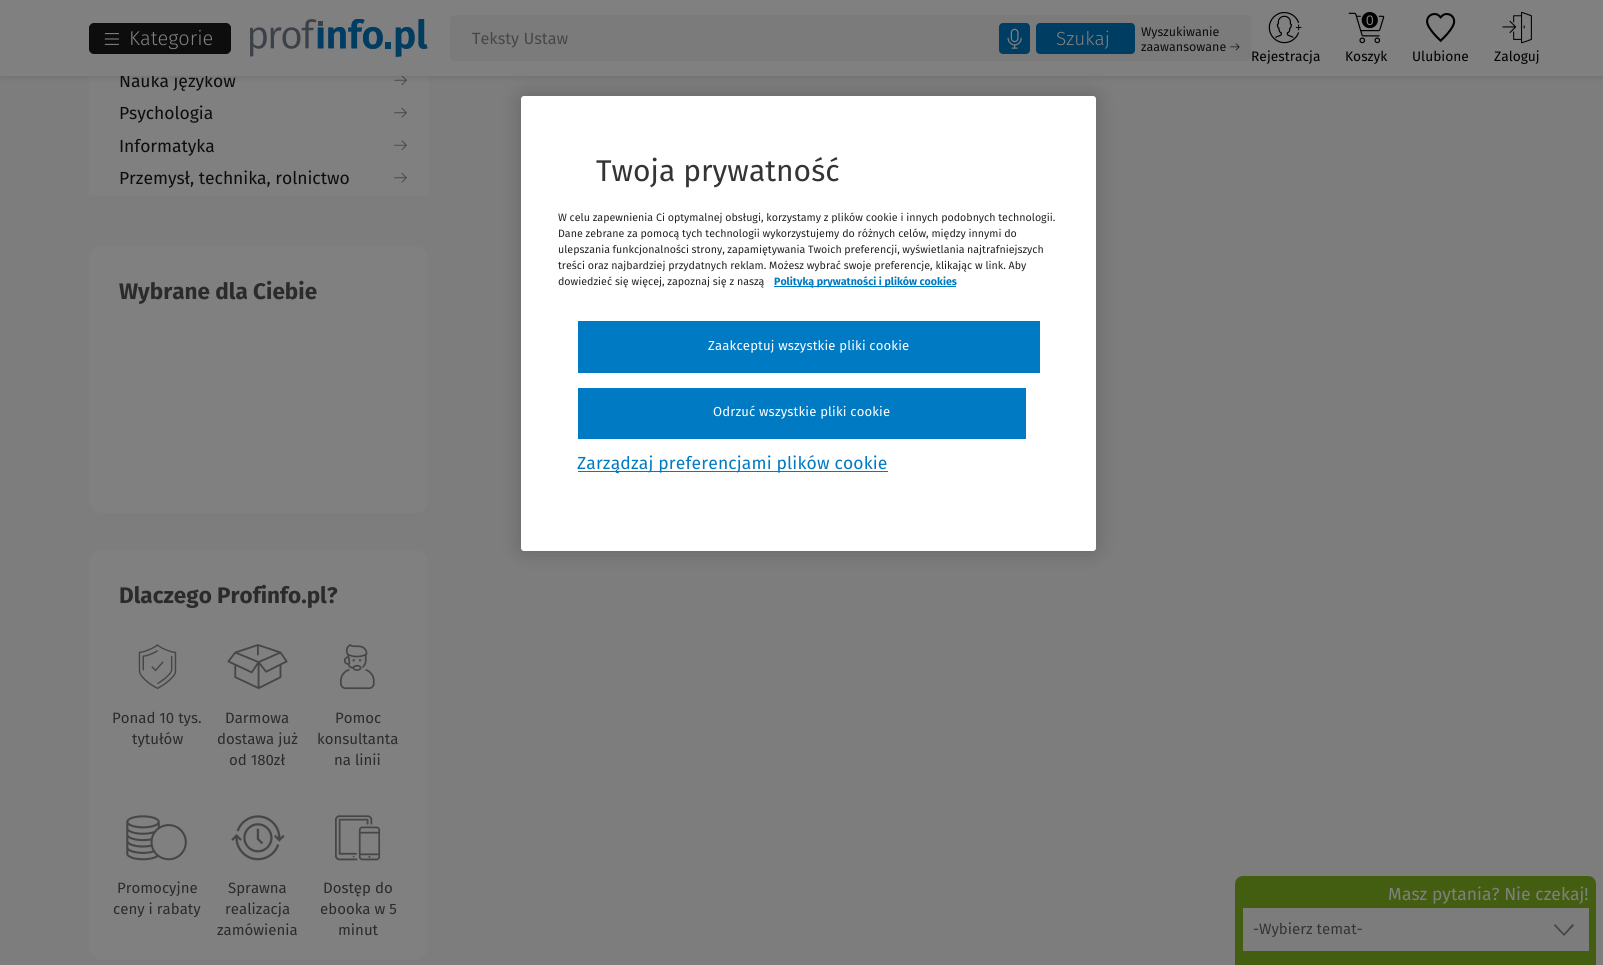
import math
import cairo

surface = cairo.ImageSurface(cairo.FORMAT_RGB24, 1603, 965)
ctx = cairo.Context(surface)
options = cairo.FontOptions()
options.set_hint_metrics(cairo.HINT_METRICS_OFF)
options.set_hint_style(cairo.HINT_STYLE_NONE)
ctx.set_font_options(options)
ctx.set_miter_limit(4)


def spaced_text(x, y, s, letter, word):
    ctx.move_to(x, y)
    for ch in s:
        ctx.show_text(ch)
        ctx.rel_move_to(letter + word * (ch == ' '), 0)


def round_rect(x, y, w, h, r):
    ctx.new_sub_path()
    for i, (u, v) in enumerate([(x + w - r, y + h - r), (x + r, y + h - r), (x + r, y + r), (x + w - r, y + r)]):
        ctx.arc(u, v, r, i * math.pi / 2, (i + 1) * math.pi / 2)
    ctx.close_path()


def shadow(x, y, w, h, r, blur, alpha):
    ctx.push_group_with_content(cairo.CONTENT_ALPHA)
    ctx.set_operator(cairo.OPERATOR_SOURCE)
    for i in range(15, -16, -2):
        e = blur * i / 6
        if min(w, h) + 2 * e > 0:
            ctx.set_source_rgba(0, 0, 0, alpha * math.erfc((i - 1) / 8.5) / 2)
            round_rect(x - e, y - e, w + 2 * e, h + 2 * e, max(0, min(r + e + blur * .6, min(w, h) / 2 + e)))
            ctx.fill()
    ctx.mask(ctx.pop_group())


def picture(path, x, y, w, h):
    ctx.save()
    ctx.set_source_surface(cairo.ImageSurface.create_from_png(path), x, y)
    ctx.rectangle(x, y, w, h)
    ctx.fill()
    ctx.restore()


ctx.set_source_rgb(0.49, 0.49, 0.49)
ctx.paint()
ctx.set_source_rgb(0.502, 0.502, 0.502)
ctx.rectangle(89, 76, 340, 120)
ctx.fill()
picture("img9.png", 394, 76, 13, 10)
ctx.set_source_rgb(0, 0, 0)
shadow(0, 0, 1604, 76, 0, 4, 0.15)
ctx.select_font_face("Fira Sans")
ctx.set_font_size(17.5)
ctx.set_source_rgb(0.051, 0.051, 0.051)
spaced_text(119, 87, "Nauka języków", -0.05, 0)
ctx.set_source_rgb(0.502, 0.502, 0.502)
ctx.rectangle(0, 0, 1603, 76)
ctx.fill()
ctx.set_source_rgb(0.051, 0.051, 0.051)
round_rect(89.5, 23.5, 141, 30, 4.5)
ctx.fill_preserve()
ctx.set_line_width(1)
ctx.stroke()
picture("img1.png", 104, 33, 15, 12)
ctx.select_font_face("Fira Sans Light")
ctx.set_font_size(20)
ctx.set_source_rgb(0.502, 0.502, 0.502)
ctx.move_to(129, 45)
ctx.show_text("Kategorie")
picture("img2.png", 250, 19, 178, 38)
ctx.set_source_rgb(0.486, 0.482, 0.482)
round_rect(450, 15, 801, 46, 5)
ctx.fill()
ctx.select_font_face("Fira Sans")
ctx.set_font_size(16.25)
ctx.set_source_rgb(0.278, 0.278, 0.278)
ctx.move_to(472, 44)
ctx.show_text("Teksty Ustaw")
ctx.set_source_rgb(0, 0.239, 0.384)
round_rect(999, 23, 31, 31, 4)
ctx.fill()
picture("img3.png", 1007, 28, 15, 21)
round_rect(1036, 23, 99, 31, 4)
ctx.fill()
ctx.select_font_face("Fira Sans Light")
ctx.set_font_size(19)
ctx.set_source_rgb(0.502, 0.502, 0.502)
ctx.move_to(1056, 45)
ctx.show_text("Szukaj")
ctx.select_font_face("Fira Sans")
ctx.set_font_size(12.5)
ctx.set_source_rgb(0.051, 0.051, 0.051)
ctx.move_to(1141, 36)
ctx.show_text("Wyszukiwanie")
ctx.move_to(1141, 51)
ctx.show_text("zaawansowane")
picture("img4.png", 1230, 43, 10, 8)
picture("img5.png", 1268, 11, 34, 33)
ctx.set_font_size(13.75)
ctx.set_source_rgb(0, 0, 0)
ctx.move_to(1251, 61)
ctx.show_text("Rejestracja")
picture("img6.png", 1348, 12, 37, 32)
ctx.select_font_face("Liberation Sans")
ctx.set_source_rgb(0.502, 0.502, 0.502)
ctx.move_to(1366, 25)
ctx.show_text("0")
ctx.select_font_face("Fira Sans")
ctx.set_source_rgb(0, 0, 0)
ctx.move_to(1345, 61)
ctx.show_text("Koszyk")
picture("img7.png", 1426, 13, 30, 30)
ctx.move_to(1412, 61)
ctx.show_text("Ulubione")
picture("img8.png", 1502, 11, 30, 33)
ctx.move_to(1494, 61)
ctx.show_text("Zaloguj")
ctx.set_font_size(17.5)
ctx.set_source_rgb(0.051, 0.051, 0.051)
spaced_text(119, 119, "Psychologia", -0.05, 0)
picture("img10.png", 394, 107, 13, 11)
spaced_text(119, 152, "Informatyka", -0.05, 0)
picture("img11.png", 394, 140, 13, 11)
spaced_text(119, 184, "Przemysł, technika, rolnictwo", -0.05, 0)
picture("img10.png", 394, 172, 13, 11)
ctx.set_source_rgb(0.502, 0.502, 0.502)
round_rect(89, 246, 339, 267, 13)
ctx.fill()
ctx.select_font_face("Fira Sans", cairo.FONT_SLANT_NORMAL, cairo.FONT_WEIGHT_BOLD)
ctx.set_font_size(22.5)
ctx.set_source_rgb(0.169, 0.169, 0.169)
ctx.move_to(119, 299)
ctx.show_text("Wybrane dla Ciebie")
ctx.set_source_rgb(0.502, 0.502, 0.502)
round_rect(89, 550, 339, 410, 13)
ctx.fill()
ctx.set_source_rgb(0.169, 0.169, 0.169)
ctx.move_to(119, 603)
ctx.show_text("Dlaczego Profinfo.pl?")
picture("img12.png", 138, 644, 39, 45)
ctx.select_font_face("Fira Sans")
ctx.set_font_size(15)
ctx.move_to(112, 723)
ctx.show_text("Ponad 10 tys.")
ctx.move_to(132, 744)
ctx.show_text("tytułów")
picture("img13.png", 227, 644, 61, 45)
ctx.move_to(225, 723)
ctx.show_text("Darmowa")
ctx.move_to(217, 744)
ctx.show_text("dostawa już")
ctx.move_to(229, 765)
ctx.show_text("od 180zł")
picture("img14.png", 340, 644, 35, 46)
ctx.move_to(335, 723)
ctx.show_text("Pomoc")
ctx.move_to(317, 744)
ctx.show_text("konsultanta")
ctx.move_to(334, 765)
ctx.show_text("na linii")
picture("img15.png", 126, 815, 61, 46)
ctx.move_to(117, 893)
ctx.show_text("Promocyjne")
ctx.move_to(113, 914)
ctx.show_text("ceny i rabaty")
picture("img16.png", 231, 815, 54, 46)
ctx.move_to(228, 893)
ctx.show_text("Sprawna")
ctx.move_to(225, 914)
ctx.show_text("realizacja")
ctx.move_to(217, 935)
ctx.show_text("zamówienia")
picture("img17.png", 335, 815, 46, 46)
ctx.move_to(323, 893)
ctx.show_text("Dostęp do")
ctx.move_to(320, 914)
ctx.show_text("ebooka w 5")
ctx.move_to(338, 935)
ctx.show_text("minut")
ctx.set_source_rgb(0, 0, 0)
shadow(521, 96, 575, 455, 3, 11, 0.2)
ctx.set_source_rgb(1, 1, 1)
round_rect(521, 96, 575, 455, 3)
ctx.fill()
ctx.set_font_size(30)
ctx.set_source_rgb(0.204, 0.204, 0.204)
ctx.move_to(596, 181)
ctx.show_text("Twoja prywatność")
ctx.set_font_size(10.65)
ctx.set_source_rgb(0.137, 0.137, 0.137)
ctx.move_to(558, 221)
ctx.show_text("W celu zapewnienia Ci optymalnej obsługi, korzystamy z plików cookie i innych podobnych technologii.")
ctx.move_to(558, 237)
ctx.show_text("Dane zebrane za pomocą tych technologii wykorzystujemy do różnych celów, między innymi do")
spaced_text(558, 253, "ulepszania funkcjonalności strony, zapamiętywania Twoich preferencji, wyświetlania najtrafniejszych", 0, -0.25)
ctx.move_to(558, 269)
ctx.show_text("treści oraz najbardziej przydatnych reklam. Możesz wybrać swoje preferencje, klikając w link. Aby")
ctx.move_to(558, 285)
ctx.show_text("dowiedzieć się więcej, zapoznaj się z naszą")
ctx.set_source_rgb(0, 0.478, 0.765)
ctx.rectangle(774, 286, 182, 1)
ctx.fill()
ctx.select_font_face("Fira Sans", cairo.FONT_SLANT_NORMAL, cairo.FONT_WEIGHT_BOLD)
ctx.move_to(774, 285)
ctx.show_text("Polityką prywatności i plików cookies")
ctx.rectangle(578, 321, 462, 52)
ctx.fill()
ctx.select_font_face("Fira Sans")
ctx.set_font_size(13.1)
ctx.set_source_rgb(1, 1, 1)
spaced_text(708, 350, "Zaakceptuj wszystkie pliki cookie", 0.15, 0)
ctx.set_source_rgb(0, 0.478, 0.765)
ctx.rectangle(578, 388, 448, 51)
ctx.fill()
ctx.set_source_rgb(1, 1, 1)
spaced_text(713, 416, "Odrzuć wszystkie pliki cookie", 0.15, 0)
ctx.set_source_rgb(0, 0.478, 0.765)
ctx.rectangle(578, 471, 310, 1)
ctx.fill()
ctx.set_font_size(17.5)
spaced_text(577, 469, "Zarządzaj preferencjami plików cookie", 0.15, 0)
ctx.set_source_rgb(0.263, 0.369, 0.063)
ctx.new_path()
ctx.move_to(1243, 876)
ctx.line_to(1588, 876)
ctx.curve_to(1592.5, 876, 1596, 879.5, 1596, 884)
ctx.line_to(1596, 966)
ctx.line_to(1235, 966)
ctx.line_to(1235, 884)
ctx.curve_to(1235, 879.5, 1238.5, 876, 1243, 876)
ctx.close_path()
ctx.fill()
ctx.set_source_rgb(0.502, 0.502, 0.502)
ctx.move_to(1388, 900)
ctx.show_text("Masz pytania? Nie czekaj!")
ctx.set_source_rgb(0.486, 0.486, 0.486)
ctx.rectangle(1243, 908, 346, 43)
ctx.fill()
ctx.set_source_rgb(0.275, 0.275, 0.271)
ctx.new_path()
ctx.move_to(1574, 925.5)
ctx.line_to(1564, 936)
ctx.line_to(1554, 925.5)
ctx.line_to(1555, 924)
ctx.line_to(1564, 933.5)
ctx.line_to(1572.5, 924)
ctx.close_path()
ctx.fill()
ctx.set_font_size(15)
ctx.set_source_rgb(0.204, 0.204, 0.204)
ctx.move_to(1253, 934)
ctx.show_text("-Wybierz temat-")
surface.write_to_png("page.png")
